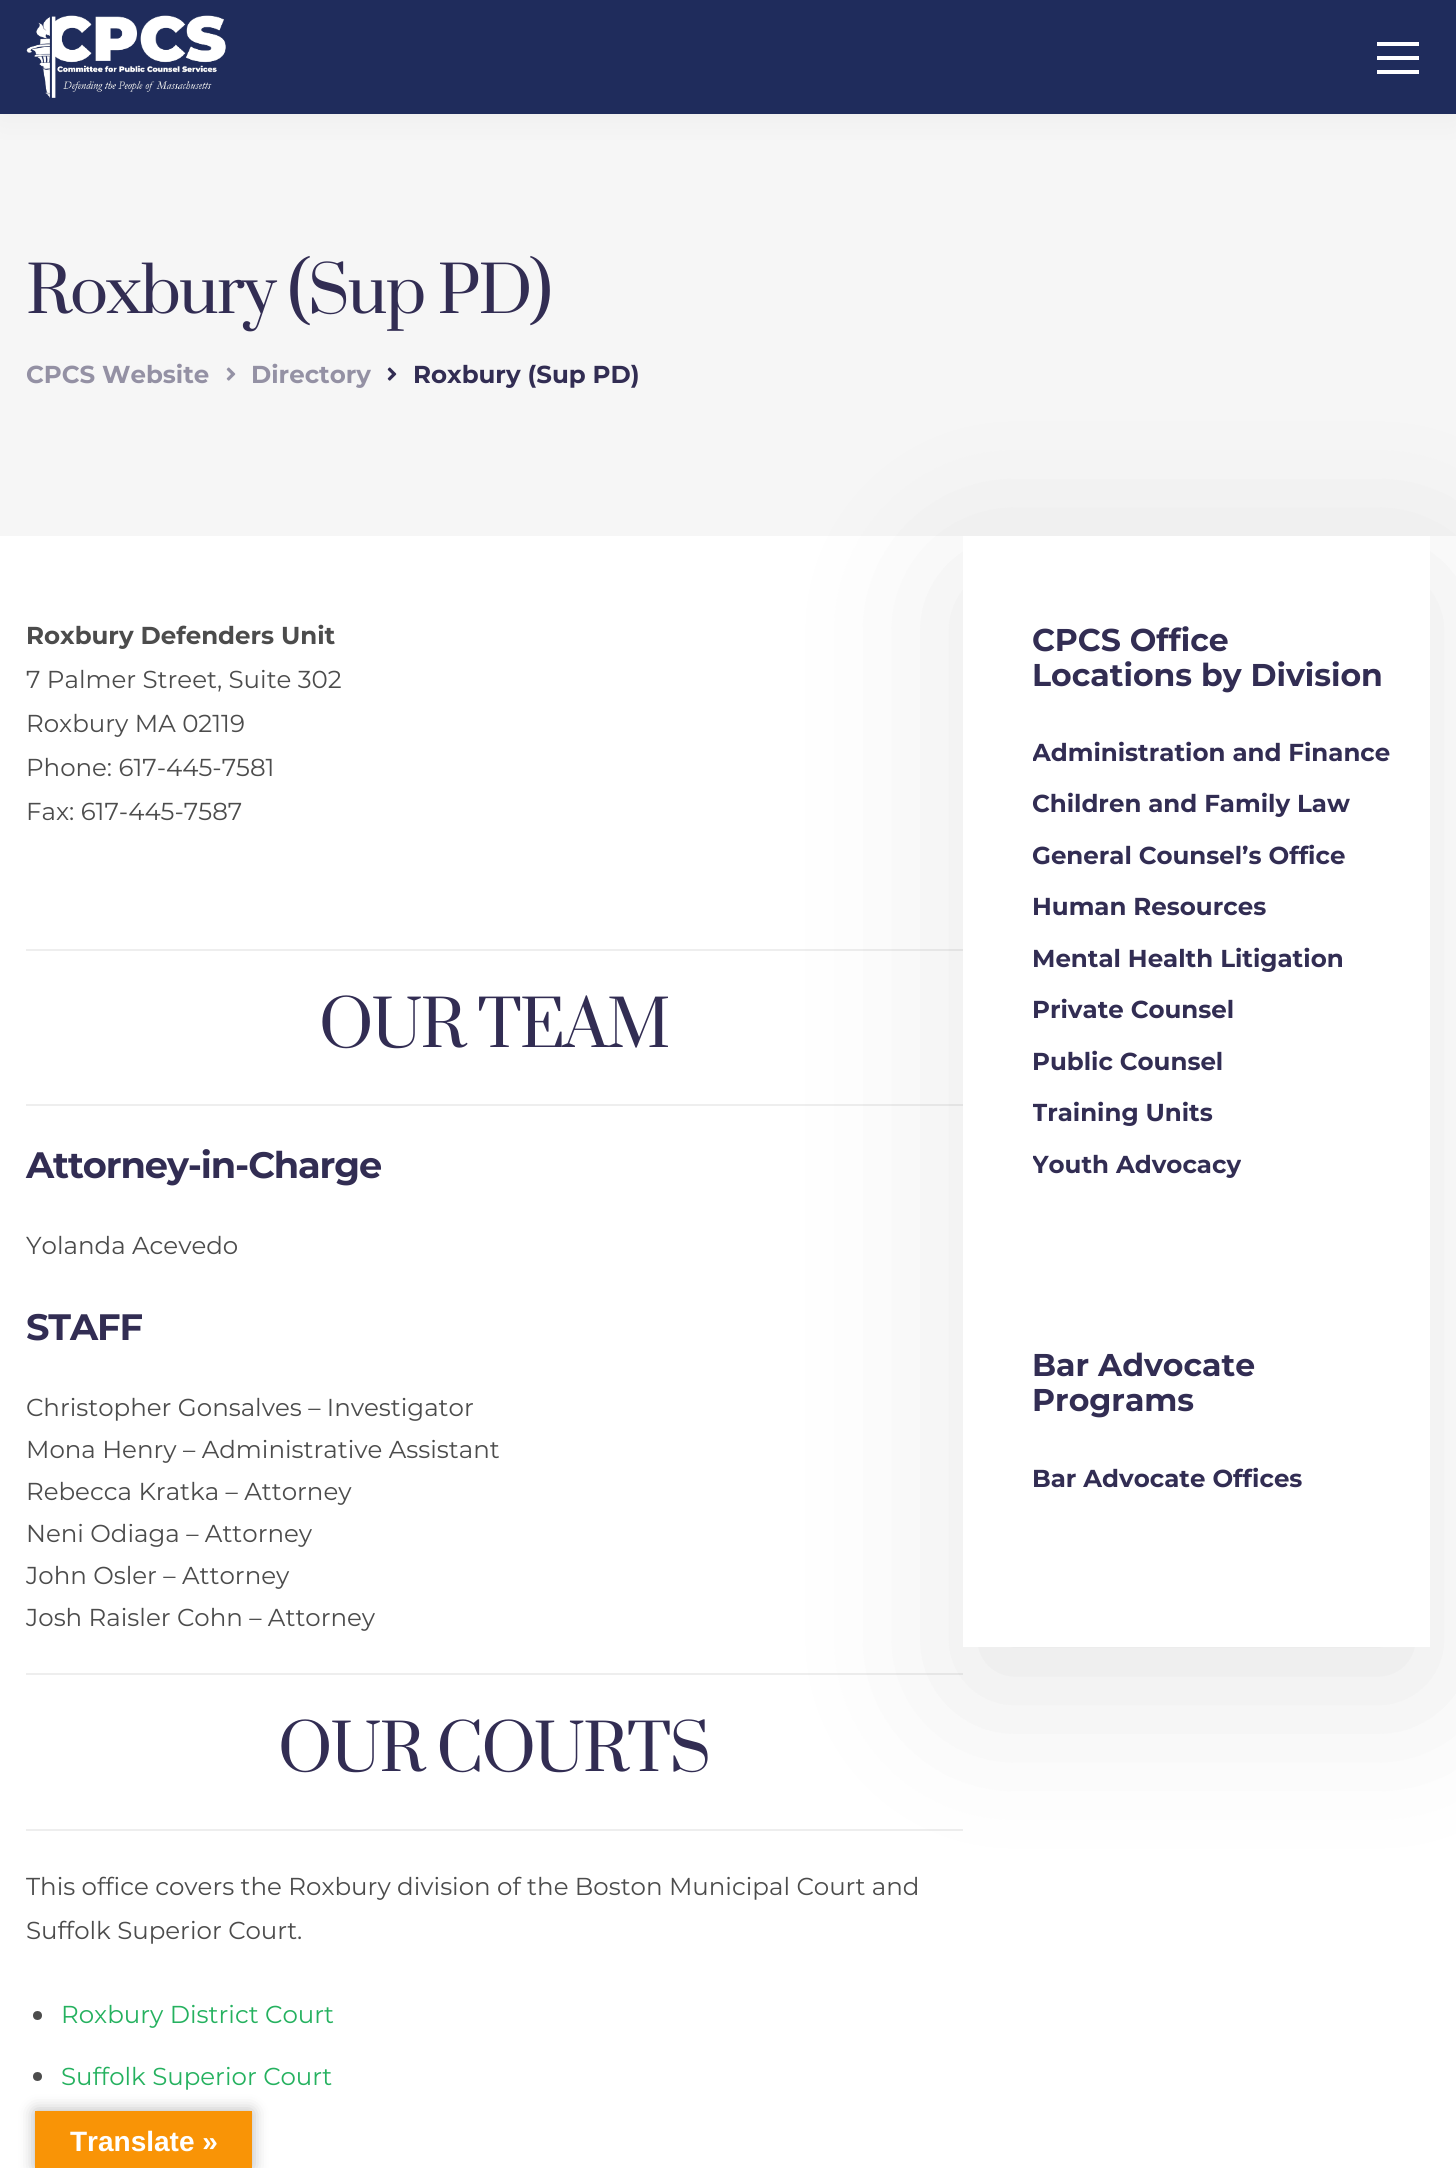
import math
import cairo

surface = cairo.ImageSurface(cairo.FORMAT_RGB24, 1456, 2168)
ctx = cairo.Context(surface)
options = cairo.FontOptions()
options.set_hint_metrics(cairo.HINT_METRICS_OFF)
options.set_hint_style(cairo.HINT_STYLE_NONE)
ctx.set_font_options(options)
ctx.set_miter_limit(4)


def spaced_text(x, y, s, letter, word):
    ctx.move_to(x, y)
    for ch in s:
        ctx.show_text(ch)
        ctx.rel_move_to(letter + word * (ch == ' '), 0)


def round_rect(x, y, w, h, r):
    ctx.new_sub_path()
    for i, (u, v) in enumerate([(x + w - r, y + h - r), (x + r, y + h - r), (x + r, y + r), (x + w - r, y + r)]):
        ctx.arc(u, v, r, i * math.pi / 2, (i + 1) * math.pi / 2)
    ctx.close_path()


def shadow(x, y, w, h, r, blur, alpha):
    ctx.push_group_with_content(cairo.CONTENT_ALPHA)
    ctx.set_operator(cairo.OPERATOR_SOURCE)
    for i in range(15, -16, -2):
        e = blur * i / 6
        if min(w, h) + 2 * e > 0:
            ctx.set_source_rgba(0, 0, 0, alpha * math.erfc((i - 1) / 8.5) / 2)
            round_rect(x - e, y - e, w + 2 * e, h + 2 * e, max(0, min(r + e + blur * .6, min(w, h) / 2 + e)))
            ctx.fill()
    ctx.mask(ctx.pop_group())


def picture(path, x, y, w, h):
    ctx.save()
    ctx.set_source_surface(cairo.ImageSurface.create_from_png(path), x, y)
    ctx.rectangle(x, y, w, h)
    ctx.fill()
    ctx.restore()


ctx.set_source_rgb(1, 1, 1)
ctx.paint()
ctx.set_source_rgb(0.961, 0.961, 0.961)
ctx.rectangle(0, 114, 1456, 422)
ctx.fill()
ctx.set_source_rgb(0, 0, 0)
shadow(0, 0, 1456, 114, 0, 17.5, 0.05)
ctx.set_source_rgb(0.122, 0.173, 0.361)
ctx.rectangle(0, 0, 1456, 114)
ctx.fill()
picture("img1.png", 26, 15, 200, 83)
ctx.set_source_rgb(1, 1, 1)
ctx.rectangle(1377, 70, 42, 4)
ctx.fill()
ctx.rectangle(1377, 42, 42, 4)
ctx.fill()
ctx.rectangle(1377, 56, 42, 4)
ctx.fill()
ctx.select_font_face("Prata")
ctx.set_font_size(63)
ctx.set_source_rgb(0.196, 0.176, 0.325)
spaced_text(26, 313, "Roxbury (Sup PD)", -1.9, 0)
ctx.select_font_face("Montserrat", cairo.FONT_SLANT_NORMAL, cairo.FONT_WEIGHT_BOLD)
ctx.set_font_size(24.5)
ctx.set_source_rgb(0.58, 0.569, 0.643)
ctx.move_to(26, 383)
ctx.show_text("CPCS Website")
picture("img2.png", 226, 367, 10, 14)
ctx.move_to(251, 383)
ctx.show_text("Directory")
picture("img3.png", 387, 367, 10, 14)
ctx.set_source_rgb(0.196, 0.176, 0.325)
ctx.move_to(413, 383)
ctx.show_text("Roxbury (Sup PD)")
ctx.set_source_rgb(0.298, 0.298, 0.298)
ctx.move_to(26, 644)
ctx.show_text("Roxbury Defenders Unit")
ctx.select_font_face("Montserrat")
ctx.move_to(26, 688)
ctx.show_text("7 Palmer Street, Suite 302")
ctx.move_to(26, 732)
ctx.show_text("Roxbury MA 02119")
ctx.move_to(26, 776)
ctx.show_text("Phone: 617-445-7581")
ctx.move_to(26, 820)
ctx.show_text("Fax: 617-445-7587")
ctx.set_source_rgb(0.933, 0.933, 0.933)
ctx.rectangle(26, 949, 937, 2)
ctx.fill()
ctx.select_font_face("Prata")
ctx.set_font_size(63)
ctx.set_source_rgb(0.196, 0.176, 0.325)
spaced_text(319, 1047, "OUR TEAM", -1.9, 0)
ctx.set_source_rgb(0.933, 0.933, 0.933)
ctx.rectangle(26, 1104, 937, 2)
ctx.fill()
ctx.select_font_face("Montserrat", cairo.FONT_SLANT_NORMAL, cairo.FONT_WEIGHT_BOLD)
ctx.set_font_size(36.75)
ctx.set_source_rgb(0.196, 0.176, 0.325)
spaced_text(26, 1178, "Attorney-in-Charge", -1.1, 0)
ctx.select_font_face("Montserrat")
ctx.set_font_size(24.5)
ctx.set_source_rgb(0.298, 0.298, 0.298)
ctx.move_to(26, 1254)
ctx.show_text("Yolanda Acevedo")
ctx.select_font_face("Montserrat", cairo.FONT_SLANT_NORMAL, cairo.FONT_WEIGHT_BOLD)
ctx.set_font_size(36.75)
ctx.set_source_rgb(0.196, 0.176, 0.325)
spaced_text(26, 1340, "STAFF", -1.1, 0)
ctx.select_font_face("Montserrat")
ctx.set_font_size(24.5)
ctx.set_source_rgb(0.298, 0.298, 0.298)
ctx.move_to(26, 1416)
ctx.show_text("Christopher Gonsalves – Investigator")
ctx.move_to(26, 1458)
ctx.show_text("Mona Henry – Administrative Assistant")
ctx.move_to(26, 1500)
ctx.show_text("Rebecca Kratka – Attorney")
ctx.move_to(26, 1542)
ctx.show_text("Neni Odiaga – Attorney")
ctx.move_to(26, 1584)
ctx.show_text("John Osler – Attorney")
ctx.move_to(26, 1626)
ctx.show_text("Josh Raisler Cohn – Attorney")
ctx.set_source_rgb(0.933, 0.933, 0.933)
ctx.rectangle(26, 1673, 937, 2)
ctx.fill()
ctx.select_font_face("Prata")
ctx.set_font_size(63)
ctx.set_source_rgb(0.196, 0.176, 0.325)
spaced_text(278, 1771, "OUR COURTS", -1.9, 0)
ctx.set_source_rgb(0.933, 0.933, 0.933)
ctx.rectangle(26, 1829, 937, 2)
ctx.fill()
ctx.select_font_face("Montserrat")
ctx.set_font_size(24.5)
ctx.set_source_rgb(0.298, 0.298, 0.298)
ctx.move_to(26, 1895)
ctx.show_text("This office covers the Roxbury division of the Boston Municipal Court and")
ctx.move_to(26, 1939)
ctx.show_text("Suffolk Superior Court.")
ctx.new_path()
ctx.arc(37.5, 2015.5, 4.5, 0, 2 * math.pi)
ctx.fill()
ctx.set_source_rgb(0.145, 0.694, 0.373)
ctx.move_to(61, 2023)
ctx.show_text("Roxbury District Court")
ctx.set_source_rgb(0.298, 0.298, 0.298)
ctx.new_path()
ctx.arc(37.5, 2076.5, 4.5, 0, 2 * math.pi)
ctx.fill()
ctx.set_source_rgb(0.145, 0.694, 0.373)
ctx.move_to(61, 2085)
ctx.show_text("Suffolk Superior Court")
ctx.set_source_rgb(0, 0, 0)
shadow(963, 579, 467, 1112, 0, 86, 0.1)
ctx.set_source_rgb(1, 1, 1)
ctx.rectangle(963, 536, 467, 1111)
ctx.fill()
ctx.select_font_face("Montserrat", cairo.FONT_SLANT_NORMAL, cairo.FONT_WEIGHT_BOLD)
ctx.set_font_size(31.5)
ctx.set_source_rgb(0.196, 0.176, 0.325)
ctx.move_to(1032, 651)
ctx.show_text("CPCS Office")
ctx.move_to(1032, 686)
ctx.show_text("Locations by Division")
ctx.save()
ctx.rectangle(1033, 728, 357, 51)
ctx.clip()
ctx.set_font_size(24.5)
ctx.move_to(1032, 761)
ctx.show_text("Administration and Finance")
ctx.restore()
ctx.set_font_size(24.5)
ctx.move_to(1032, 812)
ctx.show_text("Children and Family Law")
ctx.move_to(1032, 864)
ctx.show_text("General Counsel’s Office")
ctx.move_to(1032, 915)
ctx.show_text("Human Resources")
ctx.move_to(1032, 967)
ctx.show_text("Mental Health Litigation")
ctx.move_to(1032, 1018)
ctx.show_text("Private Counsel")
ctx.move_to(1032, 1070)
ctx.show_text("Public Counsel")
ctx.save()
ctx.rectangle(1033, 1089, 357, 50)
ctx.clip()
ctx.move_to(1032, 1121)
ctx.show_text("Training Units")
ctx.restore()
ctx.save()
ctx.rectangle(1033, 1139, 357, 51)
ctx.clip()
ctx.move_to(1032, 1173)
ctx.show_text("Youth Advocacy")
ctx.restore()
ctx.set_font_size(31.5)
ctx.move_to(1032, 1376)
ctx.show_text("Bar Advocate")
ctx.move_to(1032, 1411)
ctx.show_text("Programs")
ctx.set_font_size(24.5)
ctx.move_to(1032, 1487)
ctx.show_text("Bar Advocate Offices")
ctx.set_source_rgb(0, 0, 0)
shadow(35, 2111, 217, 57, 0, 8, 0.3)
ctx.set_source_rgb(0.973, 0.58, 0.024)
ctx.rectangle(35, 2111, 217, 57)
ctx.fill()
ctx.select_font_face("Liberation Sans", cairo.FONT_SLANT_NORMAL, cairo.FONT_WEIGHT_BOLD)
ctx.set_font_size(28)
ctx.set_source_rgb(1, 1, 1)
ctx.move_to(70, 2151)
ctx.show_text("Translate »")
surface.write_to_png("page.png")
